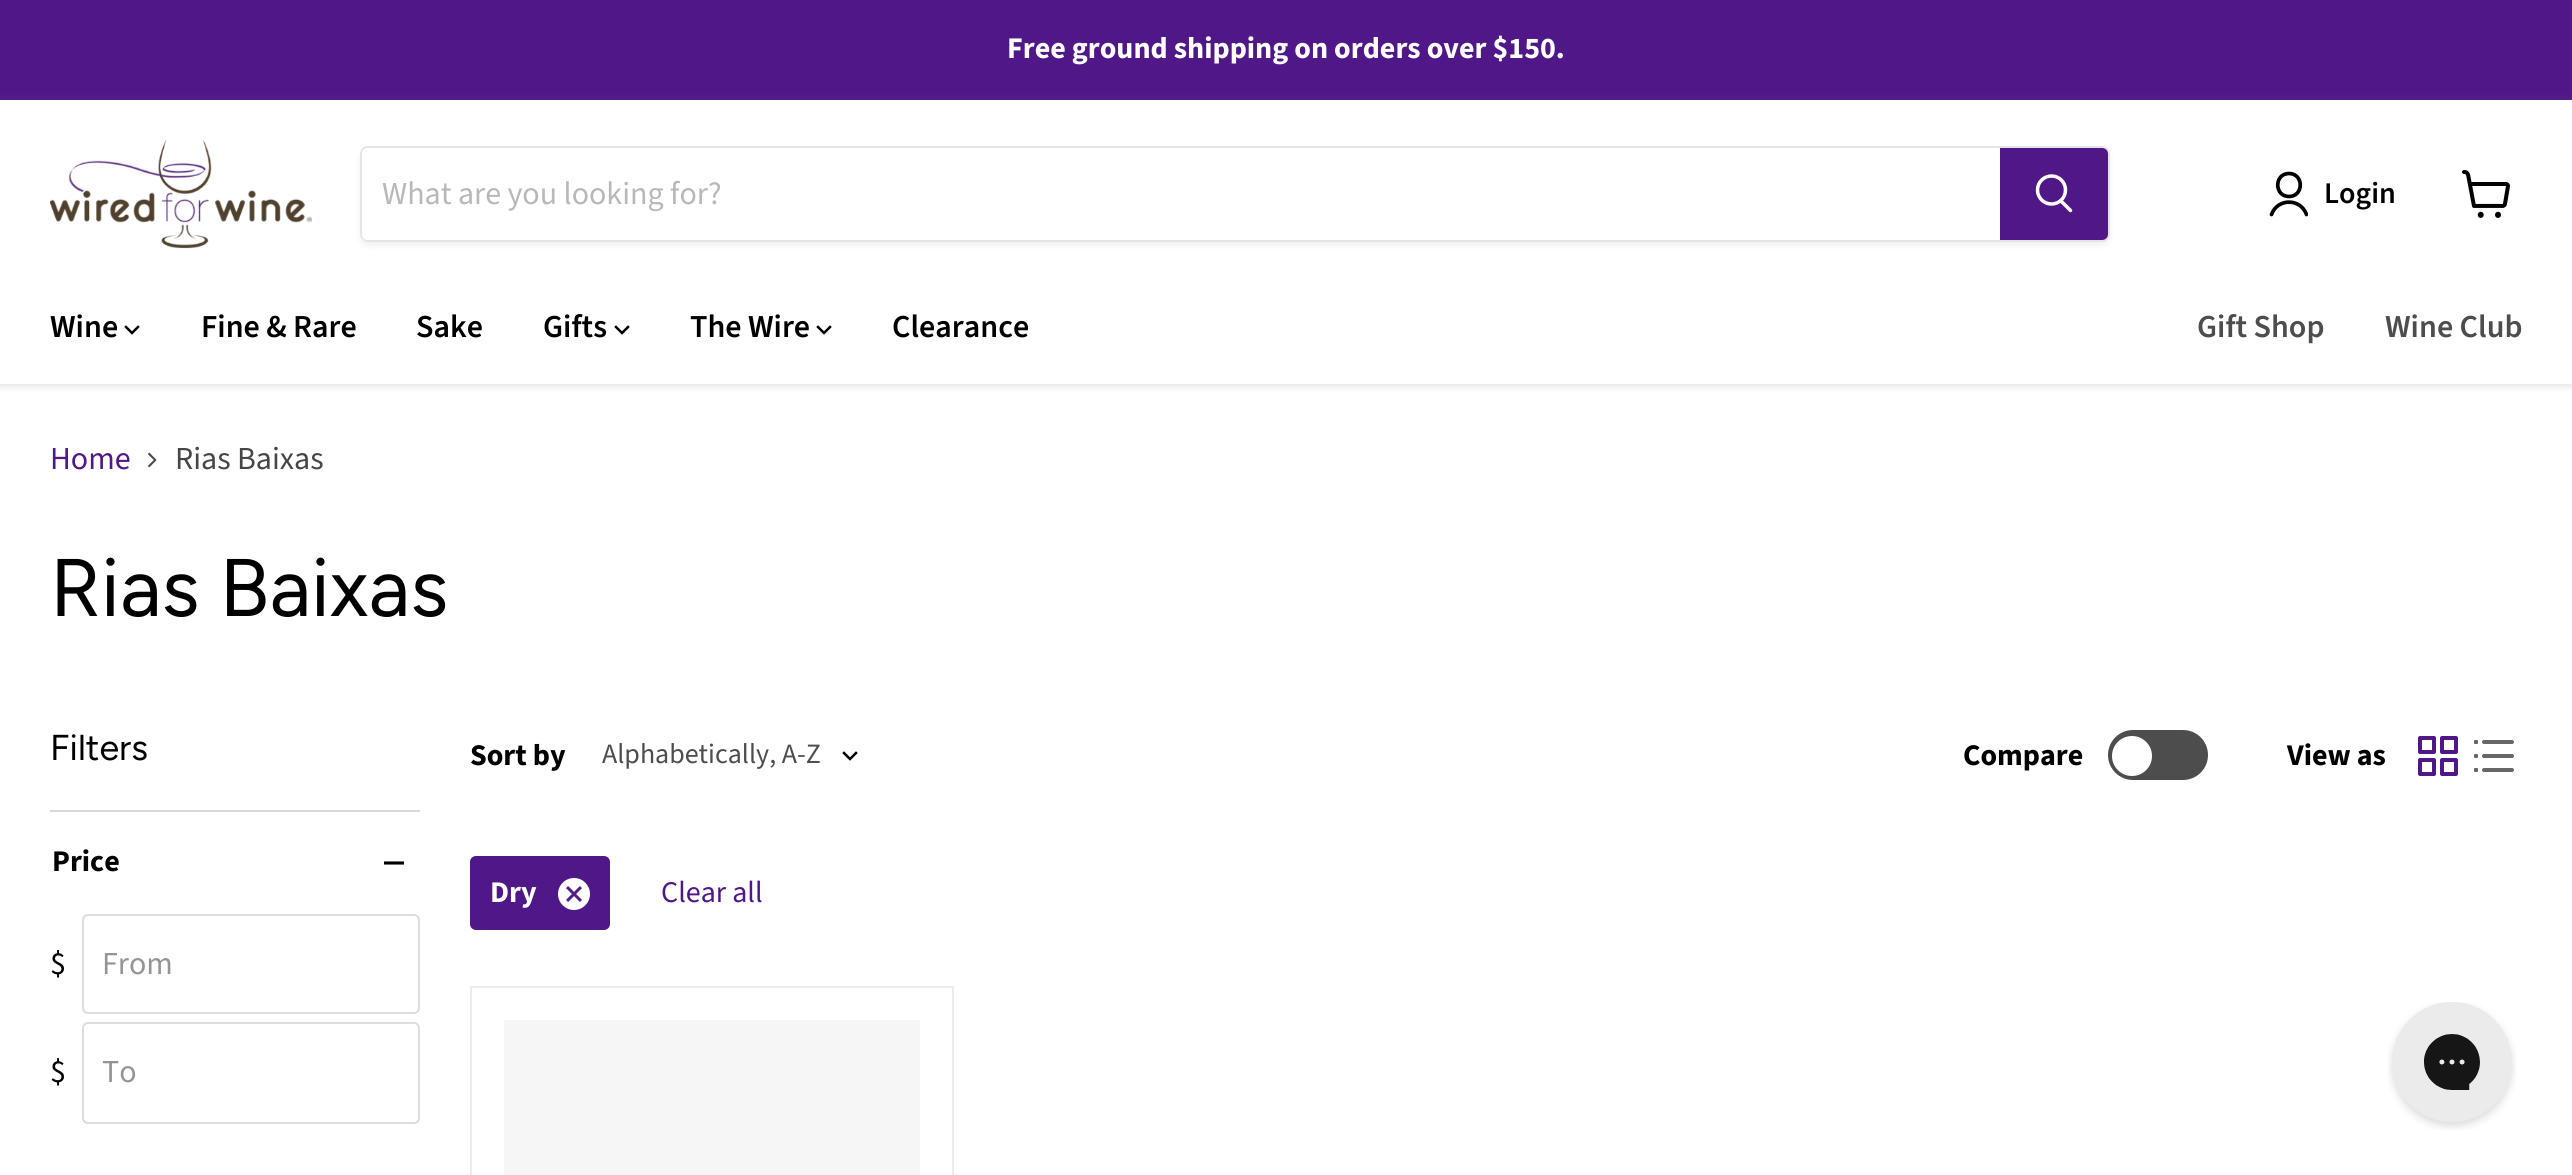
import math
import cairo

surface = cairo.ImageSurface(cairo.FORMAT_RGB24, 2572, 1175)
ctx = cairo.Context(surface)
options = cairo.FontOptions()
options.set_hint_metrics(cairo.HINT_METRICS_OFF)
options.set_hint_style(cairo.HINT_STYLE_NONE)
ctx.set_font_options(options)
ctx.set_miter_limit(4)


def round_rect(x, y, w, h, r):
    ctx.new_sub_path()
    for i, (u, v) in enumerate([(x + w - r, y + h - r), (x + r, y + h - r), (x + r, y + r), (x + w - r, y + r)]):
        ctx.arc(u, v, r, i * math.pi / 2, (i + 1) * math.pi / 2)
    ctx.close_path()


def shadow(x, y, w, h, r, blur, alpha):
    ctx.push_group_with_content(cairo.CONTENT_ALPHA)
    ctx.set_operator(cairo.OPERATOR_SOURCE)
    for i in range(15, -16, -2):
        e = blur * i / 6
        if min(w, h) + 2 * e > 0:
            ctx.set_source_rgba(0, 0, 0, alpha * math.erfc((i - 1) / 8.5) / 2)
            round_rect(x - e, y - e, w + 2 * e, h + 2 * e, max(0, min(r + e + blur * .6, min(w, h) / 2 + e)))
            ctx.fill()
    ctx.mask(ctx.pop_group())


def picture(path, x, y, w, h):
    ctx.save()
    ctx.set_source_surface(cairo.ImageSurface.create_from_png(path), x, y)
    ctx.rectangle(x, y, w, h)
    ctx.fill()
    ctx.restore()


ctx.set_source_rgb(1, 1, 1)
ctx.paint()
ctx.set_source_rgb(0.314, 0.09, 0.533)
ctx.rectangle(0, 0, 2572, 100)
ctx.fill()
ctx.select_font_face("Source Sans Pro", cairo.FONT_SLANT_NORMAL, cairo.FONT_WEIGHT_BOLD)
ctx.set_font_size(30)
ctx.set_source_rgb(1, 1, 1)
ctx.move_to(1007, 58)
ctx.show_text("Free ground shipping on orders over $150.")
ctx.save()
ctx.set_fill_rule(cairo.FILL_RULE_EVEN_ODD)
ctx.new_path()
ctx.move_to(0, 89)
ctx.line_to(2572, 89)
ctx.line_to(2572, 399)
ctx.line_to(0, 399)
ctx.close_path()
ctx.move_to(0, 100)
ctx.line_to(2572, 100)
ctx.line_to(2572, 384)
ctx.line_to(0, 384)
ctx.close_path()
ctx.clip()
ctx.set_source_rgb(0.502, 0.502, 0.502)
shadow(0, 102, 2572, 284, 0, 4, 0.25)
ctx.restore()
picture("img1.png", 50, 140, 262, 109)
ctx.save()
ctx.set_fill_rule(cairo.FILL_RULE_EVEN_ODD)
ctx.new_path()
ctx.move_to(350, 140)
ctx.line_to(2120, 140)
ctx.line_to(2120, 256)
ctx.line_to(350, 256)
ctx.close_path()
ctx.move_to(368, 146)
ctx.line_to(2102, 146)
ctx.curve_to(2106.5, 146, 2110, 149.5, 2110, 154)
ctx.line_to(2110, 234)
ctx.curve_to(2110, 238.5, 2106.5, 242, 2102, 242)
ctx.line_to(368, 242)
ctx.curve_to(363.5, 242, 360, 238.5, 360, 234)
ctx.line_to(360, 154)
ctx.curve_to(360, 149.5, 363.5, 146, 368, 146)
ctx.close_path()
ctx.clip()
ctx.set_source_rgb(0.502, 0.502, 0.502)
shadow(360, 150, 1750, 96, 8, 3, 0.11)
ctx.restore()
round_rect(361, 147, 1748, 94, 7)
ctx.set_source_rgba(0.502, 0.502, 0.502, 0.2)
ctx.stroke()
ctx.set_source_rgb(1, 1, 1)
ctx.new_path()
ctx.move_to(368, 148)
ctx.line_to(2000, 148)
ctx.line_to(2000, 240)
ctx.line_to(368, 240)
ctx.curve_to(364.5, 240, 362, 237.5, 362, 234)
ctx.line_to(362, 154)
ctx.curve_to(362, 150.5, 364.5, 148, 368, 148)
ctx.close_path()
ctx.fill()
ctx.select_font_face("Source Sans Pro")
ctx.set_font_size(32)
ctx.set_source_rgb(0.722, 0.722, 0.722)
ctx.move_to(382, 204)
ctx.show_text("What are you looking for?")
ctx.set_source_rgb(0.314, 0.09, 0.533)
ctx.new_path()
ctx.move_to(2001, 149)
ctx.line_to(2102, 149)
ctx.curve_to(2105, 149, 2107, 151, 2107, 154)
ctx.line_to(2107, 234)
ctx.curve_to(2107, 237, 2105, 239, 2102, 239)
ctx.line_to(2001, 239)
ctx.close_path()
ctx.fill_preserve()
ctx.stroke()
ctx.new_path()
ctx.move_to(2070.5, 210.5)
ctx.line_to(2061, 201)
ctx.set_source_rgb(1, 1, 1)
ctx.set_line_width(3.5)
ctx.set_line_cap(cairo.LINE_CAP_ROUND)
ctx.stroke()
ctx.arc(2051.5, 190, 14, 0, 2 * math.pi)
ctx.set_line_cap(cairo.LINE_CAP_BUTT)
ctx.stroke()
ctx.new_path()
ctx.move_to(2289, 196.5)
ctx.curve_to(2304, 196.5, 2304, 173.5, 2289, 173.5)
ctx.curve_to(2274, 173.5, 2274, 196.5, 2289, 196.5)
ctx.close_path()
ctx.set_source_rgb(0, 0, 0)
ctx.set_line_width(3.7)
ctx.set_line_cap(cairo.LINE_CAP_ROUND)
ctx.set_line_join(cairo.LINE_JOIN_ROUND)
ctx.stroke()
ctx.save()
ctx.rectangle(2268, 170, 40, 48)
ctx.clip()
ctx.new_path()
ctx.move_to(2306.5, 214.5)
ctx.curve_to(2300.5, 198, 2277.5, 198, 2271.5, 214.5)
ctx.stroke()
ctx.restore()
ctx.select_font_face("Source Sans Pro SemiBold")
ctx.set_font_size(30)
ctx.move_to(2324, 203)
ctx.show_text("Login")
picture("img2.png", 2462, 170, 48, 48)
ctx.set_font_size(32)
ctx.move_to(50, 337)
ctx.show_text("Wine")
ctx.new_path()
ctx.move_to(132, 333)
ctx.line_to(138, 327)
ctx.move_to(132, 333)
ctx.line_to(126, 327)
ctx.set_line_width(2.5)
ctx.set_line_cap(cairo.LINE_CAP_SQUARE)
ctx.set_line_join(cairo.LINE_JOIN_MITER)
ctx.stroke()
ctx.move_to(201, 337)
ctx.show_text("Fine & Rare")
ctx.move_to(416, 337)
ctx.show_text("Sake")
ctx.move_to(543, 337)
ctx.show_text("Gifts")
ctx.new_path()
ctx.move_to(622, 333)
ctx.line_to(628, 327)
ctx.move_to(622, 333)
ctx.line_to(616, 327)
ctx.stroke()
ctx.move_to(690, 337)
ctx.show_text("The Wire")
ctx.new_path()
ctx.move_to(824, 333)
ctx.line_to(830, 327)
ctx.move_to(824, 333)
ctx.line_to(818, 327)
ctx.stroke()
ctx.move_to(892, 337)
ctx.show_text("Clearance")
ctx.set_source_rgb(0.302, 0.302, 0.302)
ctx.move_to(2197, 337)
ctx.show_text("Gift Shop")
ctx.move_to(2385, 337)
ctx.show_text("Wine Club")
ctx.select_font_face("Source Sans Pro")
ctx.set_source_rgb(0.314, 0.09, 0.533)
ctx.move_to(50, 469)
ctx.show_text("Home")
picture("img3.png", 148, 452, 9, 16)
ctx.set_source_rgb(0.275, 0.275, 0.275)
ctx.move_to(175, 469)
ctx.show_text("Rias Baixas")
ctx.select_font_face("Figtree")
ctx.set_font_size(81.5)
ctx.set_source_rgb(0, 0, 0)
ctx.move_to(50, 616)
ctx.show_text("Rias Baixas")
ctx.set_font_size(36)
ctx.move_to(50, 760)
ctx.show_text("Filters")
ctx.set_source_rgb(0.851, 0.851, 0.851)
ctx.rectangle(50, 810, 370, 2)
ctx.fill()
ctx.select_font_face("Source Sans Pro", cairo.FONT_SLANT_NORMAL, cairo.FONT_WEIGHT_BOLD)
ctx.set_font_size(30)
ctx.set_source_rgb(0, 0, 0)
ctx.move_to(52, 871)
ctx.show_text("Price")
ctx.save()
ctx.rectangle(384, 852, 20, 14)
ctx.clip()
ctx.new_path()
ctx.move_to(395.5, 863)
ctx.line_to(406, 863)
ctx.move_to(392.5, 863)
ctx.line_to(382, 863)
ctx.set_line_width(3.1)
ctx.stroke()
ctx.restore()
ctx.select_font_face("Source Sans Pro")
ctx.set_font_size(32)
ctx.move_to(50, 974)
ctx.show_text("$")
round_rect(83, 915, 336, 98, 5)
ctx.set_source_rgb(0.867, 0.867, 0.878)
ctx.set_line_width(2)
ctx.set_line_cap(cairo.LINE_CAP_BUTT)
ctx.stroke()
ctx.set_source_rgb(0.58, 0.58, 0.58)
ctx.move_to(102, 974)
ctx.show_text("From")
ctx.set_source_rgb(0, 0, 0)
ctx.move_to(50, 1082)
ctx.show_text("$")
round_rect(83, 1023, 336, 100, 5)
ctx.set_source_rgb(0.867, 0.867, 0.878)
ctx.stroke()
ctx.set_source_rgb(0.58, 0.58, 0.58)
ctx.move_to(102, 1082)
ctx.show_text("To")
ctx.select_font_face("Source Sans Pro", cairo.FONT_SLANT_NORMAL, cairo.FONT_WEIGHT_BOLD)
ctx.set_font_size(30)
ctx.set_source_rgb(0, 0, 0)
ctx.move_to(470, 765)
ctx.show_text("Sort by")
ctx.select_font_face("Source Sans Pro")
ctx.set_font_size(28)
ctx.set_source_rgb(0.302, 0.302, 0.302)
ctx.move_to(602, 763)
ctx.show_text("Alphabetically, A-Z")
ctx.new_path()
ctx.move_to(850, 759)
ctx.line_to(856, 753)
ctx.move_to(850, 759)
ctx.line_to(844, 753)
ctx.set_source_rgb(0, 0, 0)
ctx.set_line_width(2.5)
ctx.set_line_cap(cairo.LINE_CAP_SQUARE)
ctx.stroke()
ctx.select_font_face("Source Sans Pro", cairo.FONT_SLANT_NORMAL, cairo.FONT_WEIGHT_BOLD)
ctx.set_font_size(30)
ctx.move_to(1963, 765)
ctx.show_text("Compare")
ctx.set_source_rgb(0.302, 0.302, 0.302)
round_rect(2108, 730, 100, 50, 25)
ctx.fill()
ctx.set_source_rgb(1, 1, 1)
ctx.arc(2132, 756, 20, 0, 2 * math.pi)
ctx.fill()
ctx.set_source_rgb(0, 0, 0)
ctx.move_to(2287, 765)
ctx.show_text("View as")
picture("img4.png", 2418, 736, 40, 40)
picture("img5.png", 2474, 740, 40, 32)
ctx.set_source_rgb(0.314, 0.09, 0.533)
round_rect(470, 856, 140, 74, 6)
ctx.fill()
ctx.set_source_rgb(1, 1, 1)
ctx.move_to(490, 902)
ctx.show_text("Dry")
ctx.new_path()
ctx.arc(574, 894, 16, 0, 2 * math.pi)
ctx.fill()
picture("img6.png", 566, 886, 16, 16)
ctx.select_font_face("Source Sans Pro")
ctx.set_source_rgb(0.314, 0.09, 0.533)
ctx.move_to(661, 902)
ctx.show_text("Clear all")
ctx.rectangle(471, 987, 482, 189)
ctx.set_source_rgb(0.922, 0.922, 0.922)
ctx.set_line_width(2)
ctx.set_line_cap(cairo.LINE_CAP_BUTT)
ctx.stroke()
ctx.set_source_rgb(0.961, 0.961, 0.961)
ctx.rectangle(504, 1020, 416, 155)
ctx.fill()
picture("img7.png", 2388, 1002, 128, 128)
surface.write_to_png("page.png")
